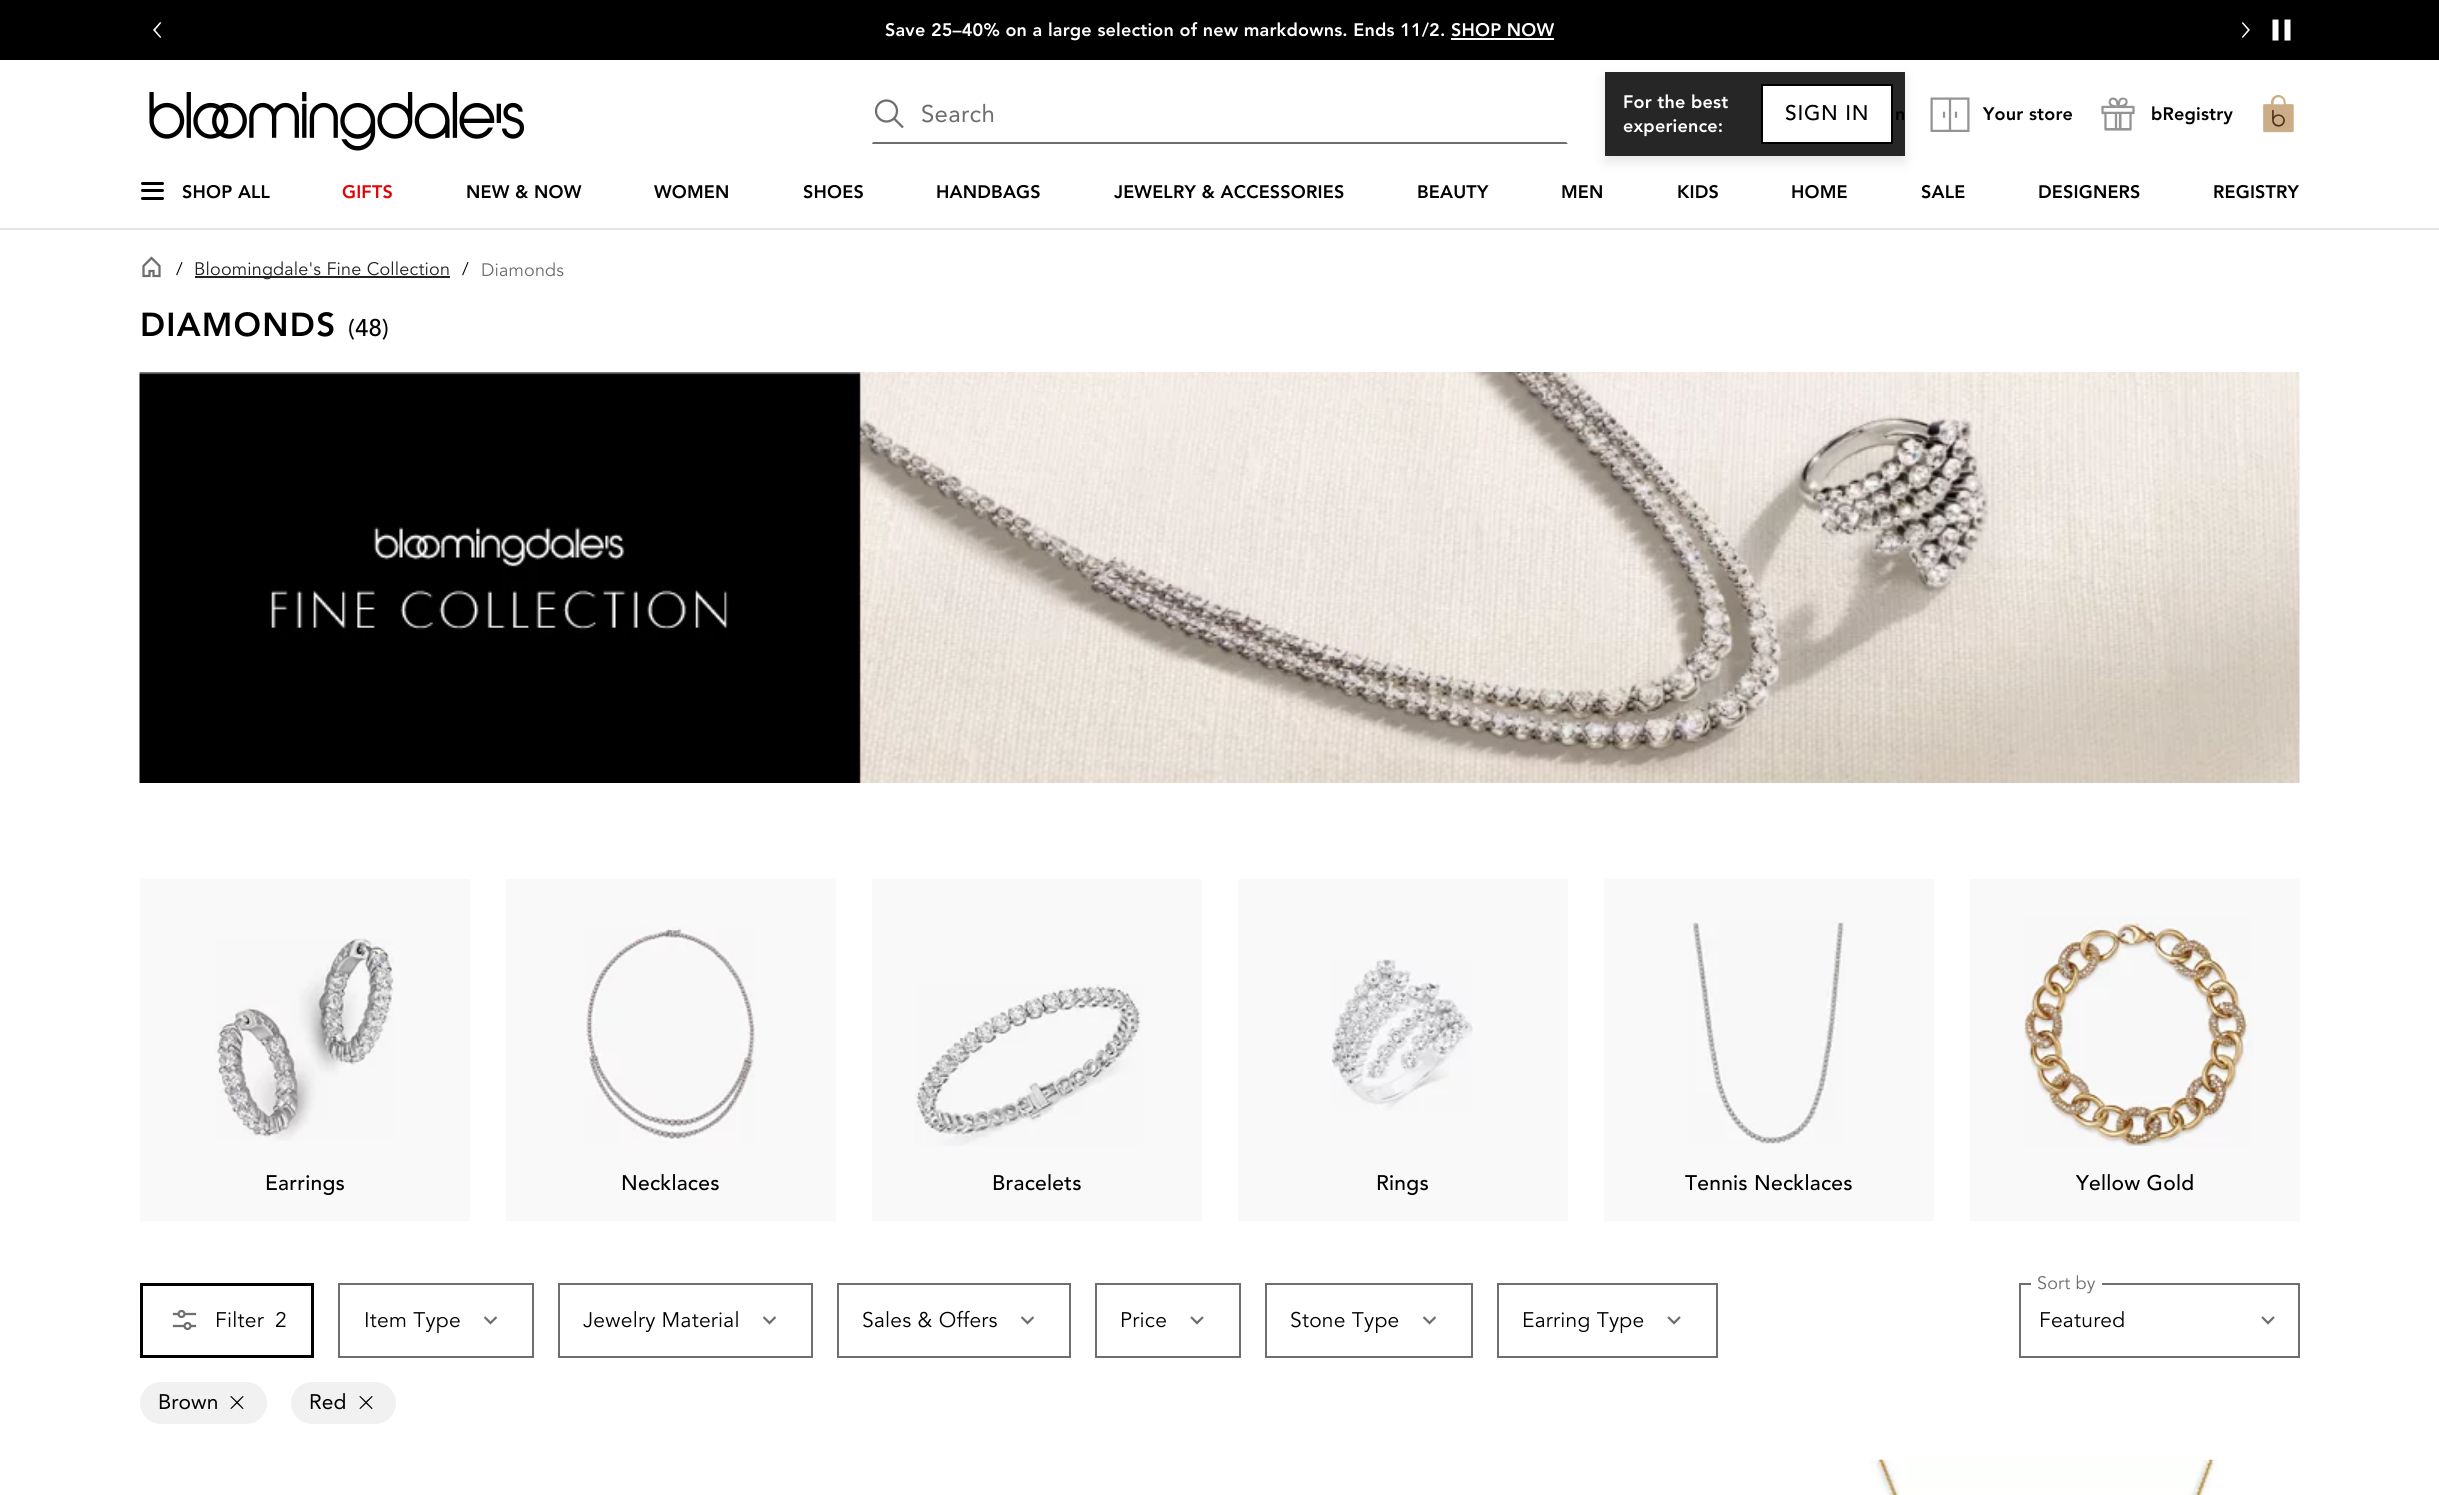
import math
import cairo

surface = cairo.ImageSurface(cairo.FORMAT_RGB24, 2439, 1495)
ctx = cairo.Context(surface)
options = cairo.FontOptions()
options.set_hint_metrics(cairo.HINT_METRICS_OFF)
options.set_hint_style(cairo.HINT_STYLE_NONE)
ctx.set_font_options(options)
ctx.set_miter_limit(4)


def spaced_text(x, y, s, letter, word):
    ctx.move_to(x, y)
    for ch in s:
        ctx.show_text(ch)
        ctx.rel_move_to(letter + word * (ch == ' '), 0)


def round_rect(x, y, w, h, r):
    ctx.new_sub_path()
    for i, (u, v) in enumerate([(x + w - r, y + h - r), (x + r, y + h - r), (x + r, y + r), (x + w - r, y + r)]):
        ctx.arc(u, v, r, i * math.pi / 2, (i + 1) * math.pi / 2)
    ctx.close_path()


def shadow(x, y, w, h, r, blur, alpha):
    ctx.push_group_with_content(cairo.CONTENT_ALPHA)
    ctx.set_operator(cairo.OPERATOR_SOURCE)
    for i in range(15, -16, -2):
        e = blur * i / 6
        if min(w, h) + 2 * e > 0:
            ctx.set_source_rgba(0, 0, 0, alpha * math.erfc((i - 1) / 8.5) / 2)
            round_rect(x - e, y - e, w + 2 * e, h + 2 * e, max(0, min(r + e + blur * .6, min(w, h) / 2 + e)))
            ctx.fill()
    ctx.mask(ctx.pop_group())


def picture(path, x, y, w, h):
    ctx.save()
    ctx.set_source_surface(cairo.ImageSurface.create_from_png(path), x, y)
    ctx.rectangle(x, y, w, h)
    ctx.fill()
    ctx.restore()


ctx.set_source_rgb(1, 1, 1)
ctx.paint()
ctx.set_source_rgb(0.149, 0.149, 0.149)
ctx.rectangle(1605, 72, 300, 84)
ctx.fill()
ctx.set_source_rgb(0, 0, 0)
ctx.rectangle(0, 0, 2439, 60)
ctx.fill()
picture("img1.png", 153, 22, 9, 16)
ctx.select_font_face("Avenir Black")
ctx.set_font_size(18)
ctx.set_source_rgb(1, 1, 1)
spaced_text(885, 36, "Save 25–40% on a large selection of new markdowns. Ends 11/2. SHOP NOW", 0.18, 0)
ctx.rectangle(1451, 38, 103, 2)
ctx.fill()
picture("img2.png", 2241, 22, 9, 16)
picture("img3.png", 2272, 19, 19, 22)
picture("img4.png", 149, 92, 376, 59)
picture("img5.png", 874, 99, 30, 30)
ctx.set_source_rgb(0.431, 0.431, 0.431)
ctx.new_path()
ctx.move_to(1568, 144)
ctx.line_to(872, 144)
ctx.line_to(873, 142)
ctx.line_to(1566, 142)
ctx.close_path()
ctx.fill()
ctx.select_font_face("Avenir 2")
ctx.set_font_size(24)
spaced_text(921, 122, "Search", 0.25, 0)
ctx.save()
ctx.set_fill_rule(cairo.FILL_RULE_EVEN_ODD)
ctx.new_path()
ctx.move_to(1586, 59)
ctx.line_to(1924, 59)
ctx.line_to(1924, 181)
ctx.line_to(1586, 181)
ctx.close_path()
ctx.move_to(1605, 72)
ctx.line_to(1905, 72)
ctx.line_to(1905, 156)
ctx.line_to(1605, 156)
ctx.close_path()
ctx.clip()
ctx.set_source_rgb(0, 0, 0)
shadow(1605, 78, 300, 84, 0, 6, 0.1)
ctx.restore()
ctx.select_font_face("Avenir Black")
ctx.set_font_size(18)
ctx.set_source_rgb(1, 1, 1)
spaced_text(1623, 108, "For the best", 0.18, 0)
spaced_text(1623, 132, "experience:", 0.18, 0)
ctx.rectangle(1763, 86, 128, 56)
ctx.fill()
ctx.rectangle(1762, 85, 130, 58)
ctx.set_source_rgb(0, 0, 0)
ctx.stroke()
ctx.select_font_face("Avenir Medium")
ctx.set_font_size(21)
spaced_text(1785, 120, "SIGN IN", 0.75, 0)
ctx.select_font_face("Avenir Black")
ctx.set_font_size(18)
spaced_text(1895, 120, "n", 0.18, 0)
picture("img6.png", 1930, 97, 40, 35)
spaced_text(1983, 120, "Your store", 0.18, 0)
picture("img7.png", 2101, 97, 34, 34)
spaced_text(2151, 120, "bRegistry", 0.18, 0)
picture("img8.png", 2263, 94, 31, 39)
ctx.set_source_rgb(0.902, 0.902, 0.902)
ctx.rectangle(0, 228, 2439, 2)
ctx.fill()
ctx.set_source_rgb(0, 0, 0)
round_rect(141, 182, 23, 3, 1.5)
ctx.fill()
round_rect(141, 189, 23, 3, 1.5)
ctx.fill()
round_rect(141, 197, 23, 3, 1.5)
ctx.fill()
spaced_text(182, 198, "SHOP ALL", 0.18, 0)
ctx.set_source_rgb(0.89, 0.012, 0.016)
spaced_text(342, 198, "GIFTS", 0.18, 0)
ctx.set_source_rgb(0, 0, 0)
spaced_text(466, 198, "NEW & NOW", 0.18, 0)
spaced_text(654, 198, "WOMEN", 0.18, 0)
spaced_text(803, 198, "SHOES", 0.18, 0)
spaced_text(936, 198, "HANDBAGS", 0.18, 0)
spaced_text(1114, 198, "JEWELRY & ACCESSORIES", 0.18, 0)
spaced_text(1417, 198, "BEAUTY", 0.18, 0)
spaced_text(1561, 198, "MEN", 0.18, 0)
spaced_text(1677, 198, "KIDS", 0.18, 0)
spaced_text(1791, 198, "HOME", 0.18, 0)
spaced_text(1921, 198, "SALE", 0.18, 0)
spaced_text(2038, 198, "DESIGNERS", 0.18, 0)
spaced_text(2213, 198, "REGISTRY", 0.18, 0)
picture("img9.png", 142, 256, 19, 22)
ctx.select_font_face("Avenir")
spaced_text(176, 275, "/", 0.18, 0)
ctx.set_source_rgb(0.133, 0.133, 0.133)
ctx.rectangle(195, 276, 255, 2)
ctx.fill()
spaced_text(194, 275, "Bloomingdale's Fine Collection", 0.18, 0)
ctx.set_source_rgb(0, 0, 0)
spaced_text(462, 275, "/", 0.18, 0)
ctx.set_source_rgb(0.431, 0.431, 0.431)
spaced_text(481, 276, "Diamonds", 0.18, 0)
ctx.select_font_face("Avenir Black")
ctx.set_font_size(33)
ctx.set_source_rgb(0, 0, 0)
spaced_text(140, 336, "DIAMONDS", 1.25, 0)
ctx.select_font_face("Avenir Medium")
ctx.set_font_size(24)
spaced_text(348, 336, "(48)", 0.25, 0)
picture("img10.png", 139, 372, 2161, 411)
ctx.set_source_rgb(0.973, 0.973, 0.973)
ctx.rectangle(140, 879, 330, 342)
ctx.fill()
picture("img11.png", 215, 938, 179, 203)
ctx.set_font_size(21)
ctx.set_source_rgb(0, 0, 0)
spaced_text(265, 1190, "Earrings", 0.25, 0)
ctx.set_source_rgb(0.973, 0.973, 0.973)
ctx.rectangle(506, 879, 330, 342)
ctx.fill()
picture("img12.png", 585, 927, 171, 216)
ctx.set_source_rgb(0, 0, 0)
spaced_text(621, 1190, "Necklaces", 0.25, 0)
ctx.set_source_rgb(0.973, 0.973, 0.973)
ctx.rectangle(872, 879, 330, 342)
ctx.fill()
picture("img13.png", 915, 984, 228, 162)
ctx.set_source_rgb(0, 0, 0)
spaced_text(992, 1190, "Bracelets", 0.25, 0)
ctx.set_source_rgb(0.973, 0.973, 0.973)
ctx.rectangle(1238, 879, 330, 342)
ctx.fill()
picture("img14.png", 1330, 959, 143, 152)
ctx.set_source_rgb(0, 0, 0)
spaced_text(1376, 1190, "Rings", 0.25, 0)
ctx.set_source_rgb(0.973, 0.973, 0.973)
ctx.rectangle(1604, 879, 330, 342)
ctx.fill()
picture("img15.png", 1689, 921, 156, 223)
ctx.set_source_rgb(0, 0, 0)
spaced_text(1685, 1190, "Tennis Necklaces", 0.25, 0)
ctx.set_source_rgb(0.973, 0.973, 0.973)
ctx.rectangle(1970, 879, 330, 342)
ctx.fill()
picture("img16.png", 2024, 915, 229, 231)
ctx.set_source_rgb(0, 0, 0)
spaced_text(2076, 1190, "Yellow Gold", 0.25, 0)
ctx.rectangle(141.5, 1284.5, 171, 72)
ctx.set_line_width(3)
ctx.stroke()
picture("img17.png", 172, 1309, 25, 22)
ctx.select_font_face("Avenir")
spaced_text(215, 1327, "Filter", 0.25, 0)
spaced_text(275, 1327, "2", 0.25, 0)
ctx.rectangle(339, 1284, 194, 73)
ctx.set_source_rgb(0.431, 0.431, 0.431)
ctx.set_line_width(2)
ctx.stroke()
ctx.set_source_rgb(0, 0, 0)
spaced_text(364, 1327, "Item Type", 0.25, 0)
picture("img18.png", 483, 1316, 15, 9)
ctx.rectangle(559, 1284, 253, 73)
ctx.set_source_rgb(0.431, 0.431, 0.431)
ctx.stroke()
ctx.set_source_rgb(0, 0, 0)
spaced_text(583, 1327, "Jewelry Material", 0.25, 0)
picture("img18.png", 762, 1316, 15, 9)
ctx.rectangle(838, 1284, 232, 73)
ctx.set_source_rgb(0.431, 0.431, 0.431)
ctx.stroke()
ctx.set_source_rgb(0, 0, 0)
spaced_text(862, 1327, "Sales & Offers", 0.25, 0)
picture("img18.png", 1020, 1316, 15, 9)
ctx.rectangle(1096, 1284, 144, 73)
ctx.set_source_rgb(0.431, 0.431, 0.431)
ctx.stroke()
ctx.set_source_rgb(0, 0, 0)
spaced_text(1120, 1327, "Price", 0.25, 0)
picture("img19.png", 1190, 1316, 14, 9)
ctx.rectangle(1266, 1284, 206, 73)
ctx.set_source_rgb(0.431, 0.431, 0.431)
ctx.stroke()
ctx.set_source_rgb(0, 0, 0)
spaced_text(1290, 1327, "Stone Type", 0.25, 0)
picture("img18.png", 1422, 1316, 15, 9)
ctx.rectangle(1498, 1284, 219, 73)
ctx.set_source_rgb(0.431, 0.431, 0.431)
ctx.stroke()
ctx.set_source_rgb(0, 0, 0)
spaced_text(1522, 1327, "Earring Type", 0.25, 0)
picture("img19.png", 1667, 1316, 14, 9)
picture("img19.png", 2261, 1316, 14, 9)
ctx.rectangle(2020, 1284, 279, 73)
ctx.set_source_rgb(0.431, 0.431, 0.431)
ctx.stroke()
ctx.set_source_rgb(1, 1, 1)
ctx.rectangle(2031, 1283, 71, 2)
ctx.fill()
ctx.set_font_size(18)
ctx.set_source_rgb(0.431, 0.431, 0.431)
spaced_text(2037, 1289, "Sort by", 0.18, 0)
ctx.set_font_size(21)
ctx.set_source_rgb(0, 0, 0)
spaced_text(2039, 1327, "Featured", 0.25, 0)
ctx.set_source_rgb(0.945, 0.945, 0.945)
round_rect(140, 1382, 127, 42, 21)
ctx.fill()
ctx.select_font_face("Avenir 2")
ctx.set_source_rgb(0, 0, 0)
ctx.move_to(158, 1409)
ctx.show_text("Brown")
picture("img20.png", 230, 1396, 14, 13)
ctx.set_source_rgb(0.945, 0.945, 0.945)
round_rect(291, 1382, 105, 42, 21)
ctx.fill()
ctx.set_source_rgb(0, 0, 0)
ctx.move_to(309, 1409)
ctx.show_text("Red")
picture("img20.png", 359, 1396, 14, 13)
picture("img21.png", 1870, 1459, 349, 36)
surface.write_to_png("page.png")
